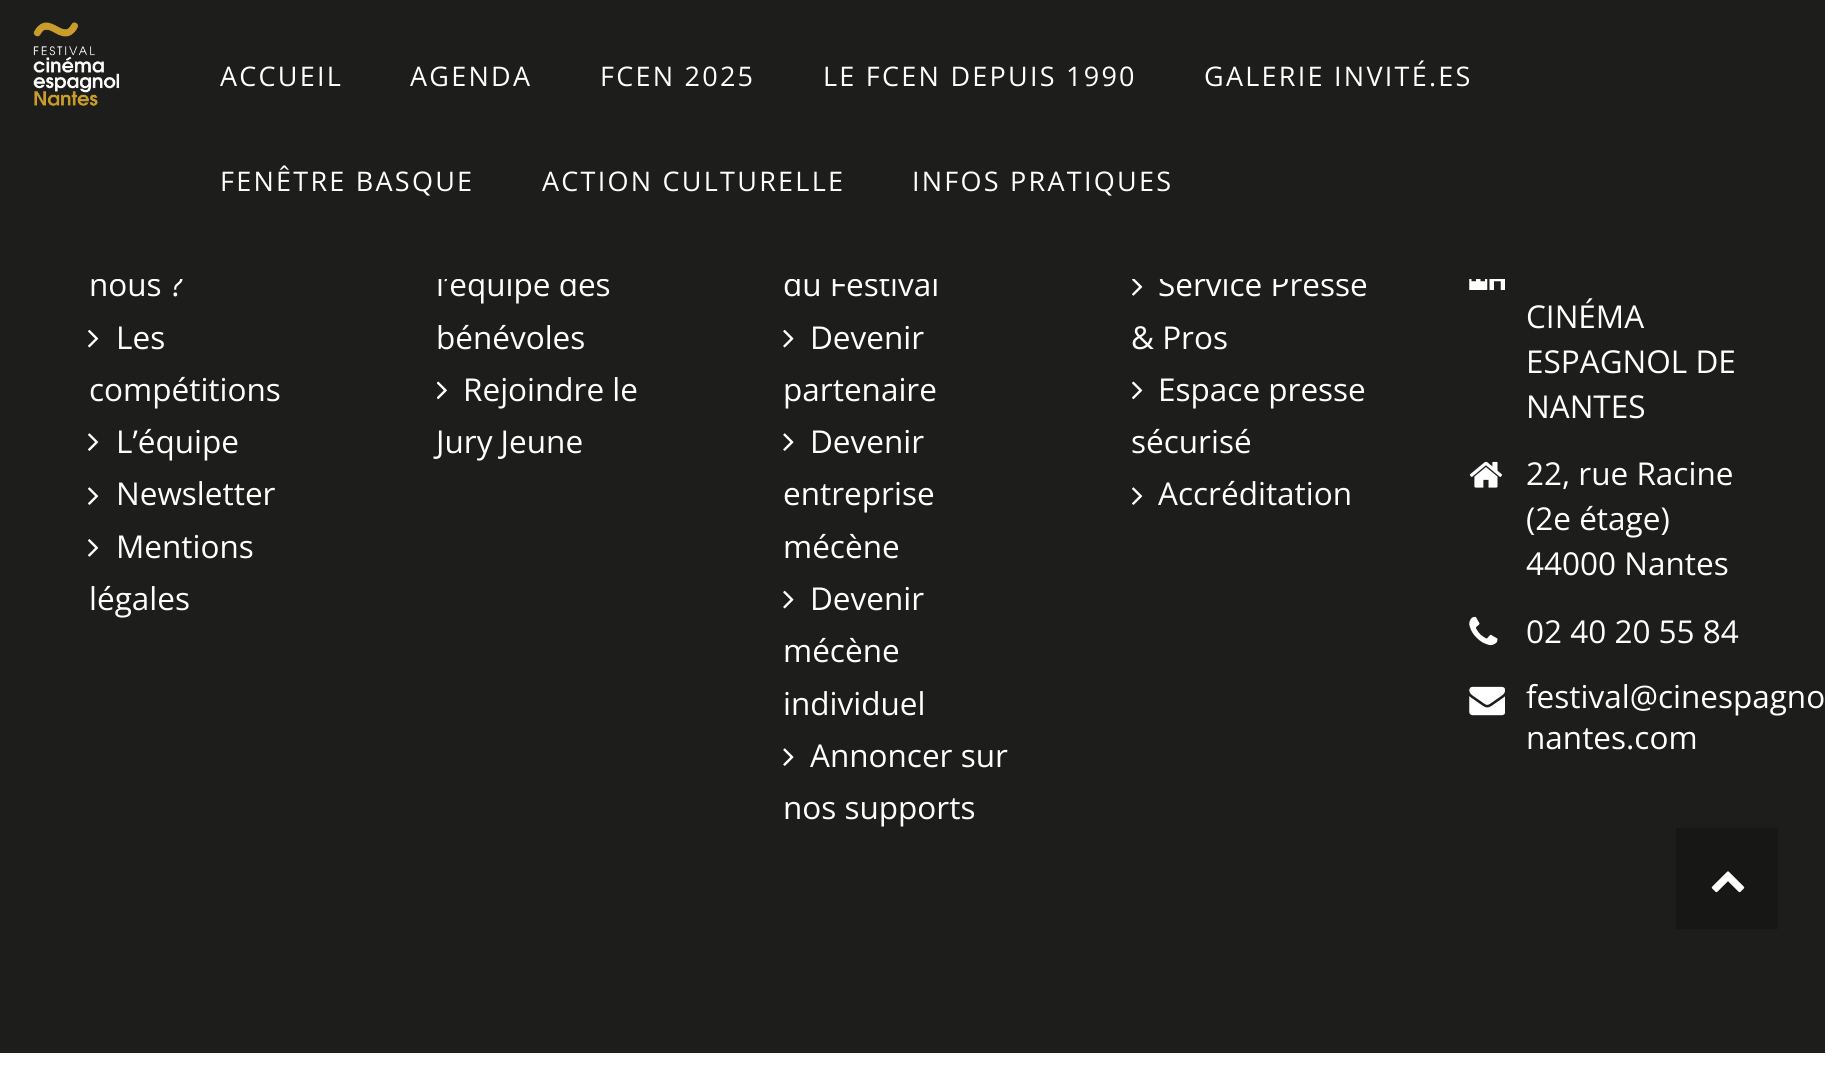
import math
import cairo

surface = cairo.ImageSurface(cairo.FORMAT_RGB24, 1825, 1091)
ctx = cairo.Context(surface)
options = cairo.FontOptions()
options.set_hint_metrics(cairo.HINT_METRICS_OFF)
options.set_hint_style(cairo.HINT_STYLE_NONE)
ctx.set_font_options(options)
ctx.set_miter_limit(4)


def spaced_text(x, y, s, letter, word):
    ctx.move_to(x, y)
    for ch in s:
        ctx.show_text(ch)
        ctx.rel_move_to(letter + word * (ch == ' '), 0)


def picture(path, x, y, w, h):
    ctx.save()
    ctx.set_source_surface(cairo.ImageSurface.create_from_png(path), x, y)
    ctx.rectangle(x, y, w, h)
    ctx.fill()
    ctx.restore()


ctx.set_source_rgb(1, 1, 1)
ctx.paint()
ctx.set_source_rgb(0.114, 0.114, 0.106)
ctx.rectangle(0, 279, 1825, 774)
ctx.fill()
ctx.select_font_face("Open Sans")
ctx.set_font_size(31.5)
ctx.set_source_rgb(1, 1, 1)
ctx.move_to(89, 296)
ctx.show_text("nous ?")
ctx.move_to(436, 296)
ctx.show_text("l’équipe des")
ctx.move_to(783, 296)
ctx.show_text("du Festival")
ctx.move_to(1158, 296)
ctx.show_text("Service Presse")
ctx.set_source_rgb(0.114, 0.114, 0.106)
ctx.rectangle(0, 0, 1825, 279)
ctx.fill()
picture("img1.png", 33, 22, 87, 84)
ctx.set_font_size(27)
ctx.set_source_rgb(1, 1, 1)
spaced_text(220, 86, "ACCUEIL", 2.25, 0)
spaced_text(410, 86, "AGENDA", 2.25, 0)
spaced_text(600, 86, "FCEN 2025", 2.25, 0)
spaced_text(823, 86, "LE FCEN DEPUIS 1990", 2.25, 0)
spaced_text(1204, 86, "GALERIE INVITÉ.ES", 2.25, 0)
spaced_text(220, 191, "FENÊTRE BASQUE", 2.25, 0)
spaced_text(542, 191, "ACTION CULTURELLE", 2.25, 0)
spaced_text(912, 191, "INFOS PRATIQUES", 2.25, 0)
picture("img2.png", 88, 329, 11, 19)
ctx.set_font_size(31.5)
ctx.move_to(116, 349)
ctx.show_text("Les")
ctx.move_to(89, 401)
ctx.show_text("compétitions")
picture("img3.png", 88, 433, 11, 18)
ctx.move_to(116, 453)
ctx.show_text("L’équipe")
picture("img3.png", 88, 487, 11, 18)
ctx.move_to(116, 505)
ctx.show_text("Newsletter")
picture("img4.png", 88, 539, 11, 18)
ctx.move_to(116, 558)
ctx.show_text("Mentions")
ctx.move_to(89, 610)
ctx.show_text("légales")
ctx.move_to(436, 349)
ctx.show_text("bénévoles")
picture("img5.png", 437, 381, 10, 19)
ctx.move_to(463, 401)
ctx.show_text("Rejoindre le")
ctx.move_to(436, 453)
ctx.show_text("Jury Jeune")
picture("img6.png", 783, 329, 11, 19)
ctx.move_to(810, 349)
ctx.show_text("Devenir")
ctx.move_to(783, 401)
ctx.show_text("partenaire")
picture("img7.png", 783, 433, 11, 18)
ctx.move_to(810, 453)
ctx.show_text("Devenir")
ctx.move_to(783, 505)
ctx.show_text("entreprise")
ctx.move_to(783, 558)
ctx.show_text("mécène")
picture("img6.png", 783, 590, 11, 19)
ctx.move_to(810, 610)
ctx.show_text("Devenir")
ctx.move_to(783, 662)
ctx.show_text("mécène")
ctx.move_to(783, 715)
ctx.show_text("individuel")
picture("img7.png", 783, 748, 11, 18)
ctx.move_to(810, 767)
ctx.show_text("Annoncer sur")
ctx.move_to(783, 819)
ctx.show_text("nos supports")
picture("img8.png", 1132, 279, 11, 17)
ctx.move_to(1131, 349)
ctx.show_text("& Pros")
picture("img9.png", 1132, 381, 11, 19)
ctx.move_to(1158, 401)
ctx.show_text("Espace presse")
ctx.move_to(1131, 453)
ctx.show_text("sécurisé")
picture("img3.png", 1132, 487, 11, 18)
ctx.move_to(1158, 505)
ctx.show_text("Accréditation")
picture("img10.png", 1469, 279, 36, 11)
ctx.move_to(1526, 328)
ctx.show_text("CINÉMA")
ctx.move_to(1526, 373)
ctx.show_text("ESPAGNOL DE")
ctx.move_to(1526, 418)
ctx.show_text("NANTES")
picture("img11.png", 1469, 461, 34, 27)
ctx.move_to(1526, 485)
ctx.show_text("22, rue Racine")
ctx.move_to(1526, 530)
ctx.show_text("(2e étage)")
ctx.move_to(1526, 575)
ctx.show_text("44000 Nantes")
picture("img12.png", 1469, 616, 29, 30)
ctx.move_to(1526, 643)
ctx.show_text("02 40 20 55 84")
picture("img13.png", 1469, 686, 36, 30)
ctx.move_to(1526, 708)
ctx.show_text("festival@cinespagno")
ctx.move_to(1526, 749)
ctx.show_text("nantes.com")
ctx.set_source_rgb(0.09, 0.09, 0.086)
ctx.rectangle(1676, 828, 102, 101)
ctx.fill()
picture("img14.png", 1711, 871, 34, 22)
surface.write_to_png("page.png")
